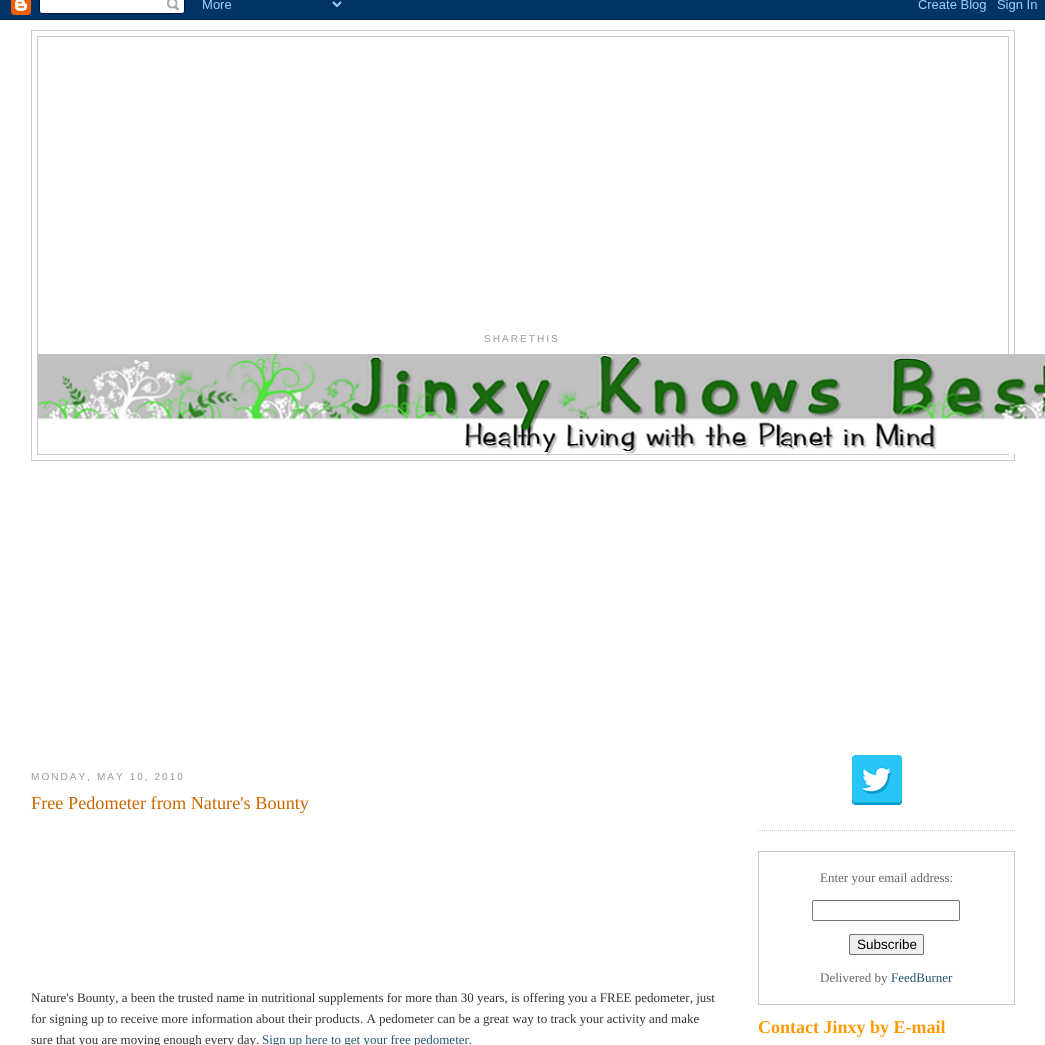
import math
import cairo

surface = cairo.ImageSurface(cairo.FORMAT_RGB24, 1045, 1045)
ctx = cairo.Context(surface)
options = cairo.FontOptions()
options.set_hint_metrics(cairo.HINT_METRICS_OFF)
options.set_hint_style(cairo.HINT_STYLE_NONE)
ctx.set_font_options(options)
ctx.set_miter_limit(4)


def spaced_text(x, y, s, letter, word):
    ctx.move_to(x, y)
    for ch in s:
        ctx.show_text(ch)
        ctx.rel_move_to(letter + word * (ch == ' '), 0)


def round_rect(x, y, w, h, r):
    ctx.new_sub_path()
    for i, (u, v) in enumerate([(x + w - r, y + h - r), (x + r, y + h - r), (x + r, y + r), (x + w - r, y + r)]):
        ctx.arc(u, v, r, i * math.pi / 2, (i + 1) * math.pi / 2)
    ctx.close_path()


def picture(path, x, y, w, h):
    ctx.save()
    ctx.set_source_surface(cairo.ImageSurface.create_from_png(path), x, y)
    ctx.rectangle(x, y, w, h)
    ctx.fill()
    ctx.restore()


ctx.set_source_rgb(1, 1, 1)
ctx.paint()
picture("img1.png", 0, 0, 1045, 20)
ctx.rectangle(31.5, 30.5, 983, 430)
ctx.set_source_rgb(0.8, 0.8, 0.8)
ctx.set_line_width(1)
ctx.stroke()
ctx.rectangle(37.5, 36.5, 971, 418)
ctx.stroke()
ctx.select_font_face("Liberation Sans")
ctx.set_font_size(10.1)
ctx.set_source_rgb(0.6, 0.6, 0.6)
spaced_text(484, 342, "SHARETHIS", 2, 0)
picture("img2.png", 38, 354, 1007, 100)
spaced_text(31, 780, "MONDAY, MAY 10, 2010", 2, 0)
ctx.select_font_face("Liberation Serif")
ctx.set_font_size(18.25)
ctx.set_source_rgb(0.8, 0.4, 0)
ctx.move_to(31, 809)
ctx.show_text("Free Pedometer from Nature's Bounty")
ctx.set_font_size(13)
ctx.set_source_rgb(0.2, 0.2, 0.2)
ctx.move_to(31, 1002)
ctx.show_text("Nature's Bounty, a been the trusted name in nutritional supplements for more than 30 years, is offering you a FREE pedometer, just")
ctx.move_to(31, 1023)
ctx.show_text("for signing up to receive more information about their products. A pedometer can be a great way to track your activity and make")
ctx.move_to(31, 1044)
ctx.show_text("sure that you are moving enough every day.")
ctx.set_source_rgb(0.129, 0.337, 0.439)
ctx.move_to(262, 1044)
ctx.show_text("Sign up here to get your free pedometer.")
ctx.new_path()
ctx.move_to(758, 830.5)
ctx.line_to(1015, 830.5)
ctx.set_source_rgb(0.8, 0.8, 0.8)
ctx.set_dash([1, 1])
ctx.stroke()
picture("img3.png", 852, 755, 50, 50)
ctx.rectangle(758.5, 851.5, 256, 153)
ctx.set_dash([])
ctx.stroke()
ctx.set_source_rgb(0.4, 0.4, 0.4)
ctx.move_to(820, 882)
ctx.show_text("Enter your email address:")
round_rect(812.5, 900.5, 147, 20, 1.5)
ctx.set_source_rgb(0.463, 0.463, 0.463)
ctx.stroke()
ctx.set_source_rgb(0.937, 0.937, 0.937)
round_rect(849.5, 934.5, 74, 20, 1.5)
ctx.fill_preserve()
ctx.set_source_rgb(0.463, 0.463, 0.463)
ctx.stroke()
ctx.select_font_face("Liberation Sans")
ctx.set_font_size(13.5)
ctx.set_source_rgb(0, 0, 0)
ctx.move_to(857, 949)
ctx.show_text("Subscribe")
ctx.select_font_face("Liberation Serif")
ctx.set_font_size(13)
ctx.set_source_rgb(0.4, 0.4, 0.4)
ctx.move_to(820, 982)
ctx.show_text("Delivered by")
ctx.set_source_rgb(0.129, 0.337, 0.439)
ctx.move_to(891, 982)
ctx.show_text("FeedBurner")
ctx.select_font_face("Liberation Serif", cairo.FONT_SLANT_NORMAL, cairo.FONT_WEIGHT_BOLD)
ctx.set_font_size(18)
ctx.set_source_rgb(1, 0.6, 0)
ctx.move_to(758, 1033)
ctx.show_text("Contact Jinxy by E-mail")
surface.write_to_png("page.png")
